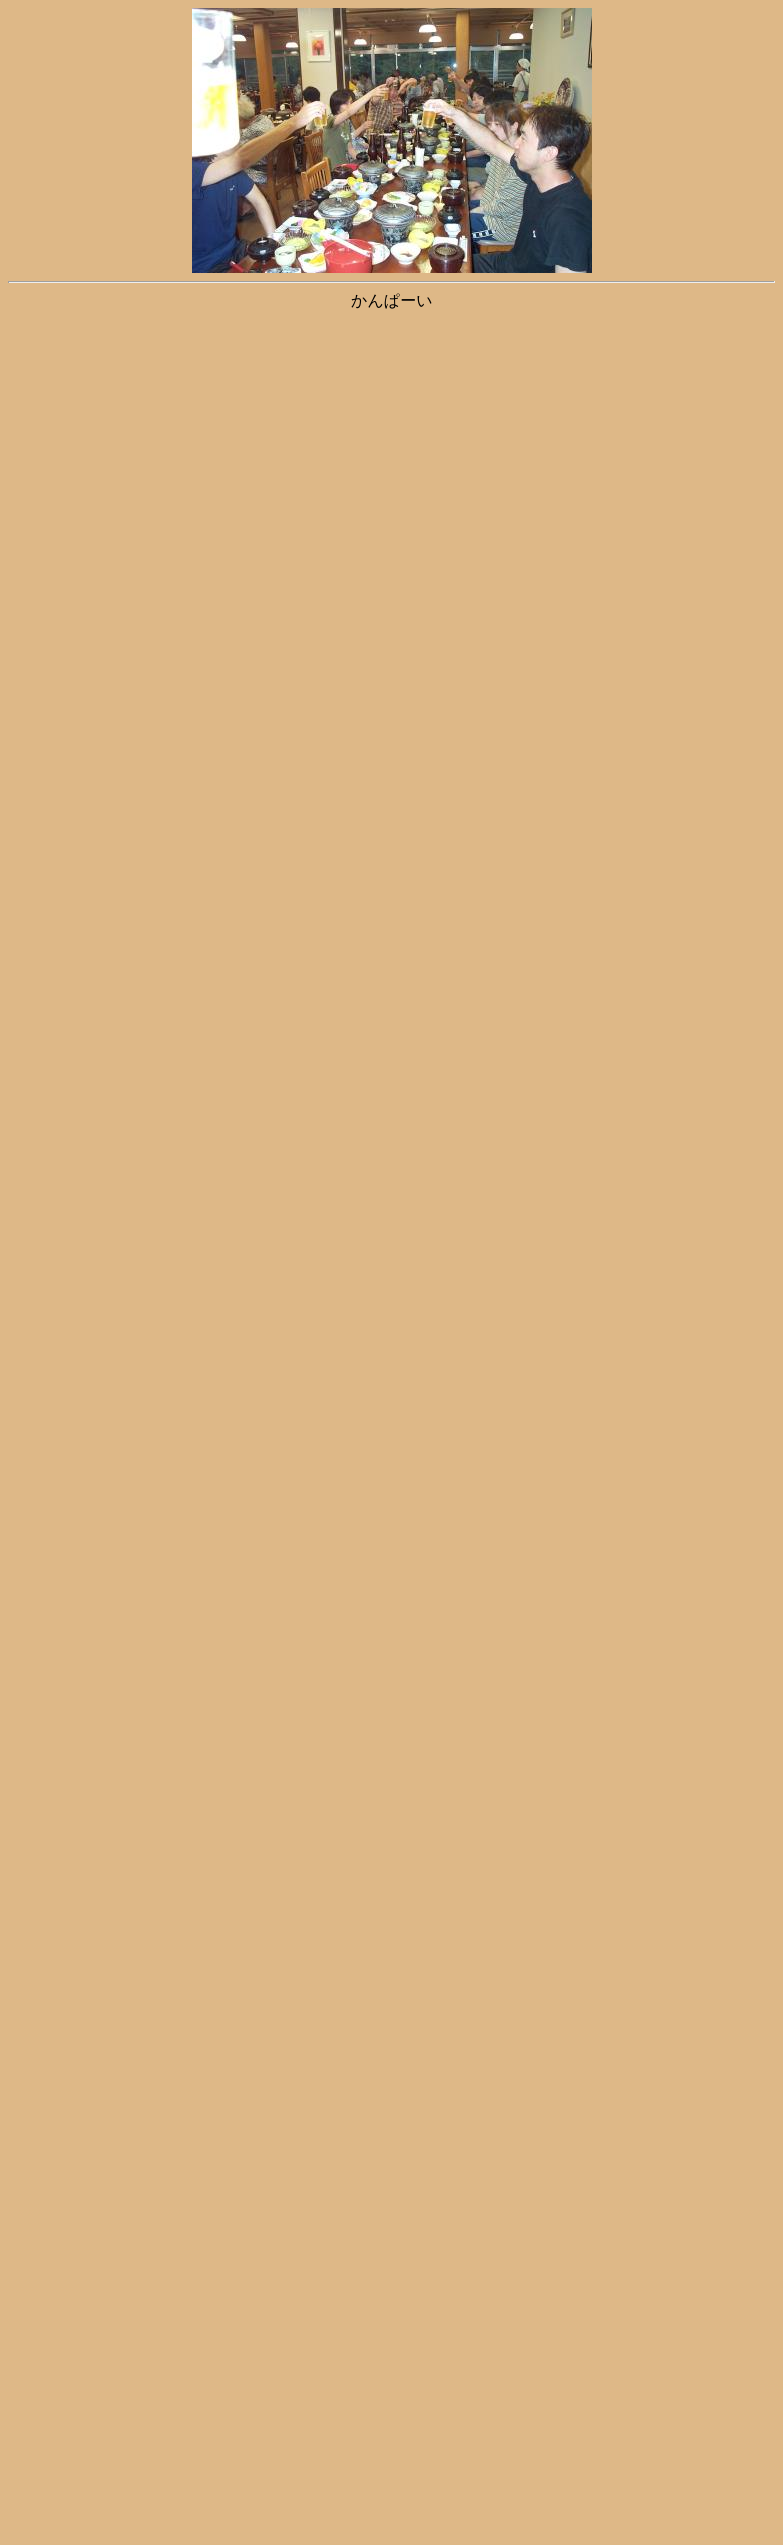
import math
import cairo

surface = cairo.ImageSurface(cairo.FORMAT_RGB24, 783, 2545)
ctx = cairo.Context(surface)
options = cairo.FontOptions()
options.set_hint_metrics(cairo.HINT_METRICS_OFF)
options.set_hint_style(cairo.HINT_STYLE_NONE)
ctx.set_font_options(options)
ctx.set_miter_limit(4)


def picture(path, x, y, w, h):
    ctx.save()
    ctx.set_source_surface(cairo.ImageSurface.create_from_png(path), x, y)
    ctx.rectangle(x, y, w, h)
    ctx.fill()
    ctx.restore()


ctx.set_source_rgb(0.871, 0.722, 0.529)
ctx.paint()
picture("img1.png", 192, 8, 400, 265)
ctx.set_source_rgb(0.624, 0.624, 0.624)
ctx.rectangle(8, 281, 767, 1)
ctx.fill()
ctx.set_source_rgb(0.933, 0.933, 0.933)
ctx.rectangle(774, 281, 1, 2)
ctx.fill()
ctx.rectangle(8, 282, 767, 1)
ctx.fill()
ctx.set_source_rgb(0.624, 0.624, 0.624)
ctx.rectangle(8, 281, 1, 2)
ctx.fill()
ctx.select_font_face("WenQuanYi Zen Hei Medium")
ctx.set_font_size(16)
ctx.set_source_rgb(0, 0, 0)
ctx.move_to(351, 306)
ctx.show_text("かんぱーい")
surface.write_to_png("page.png")
